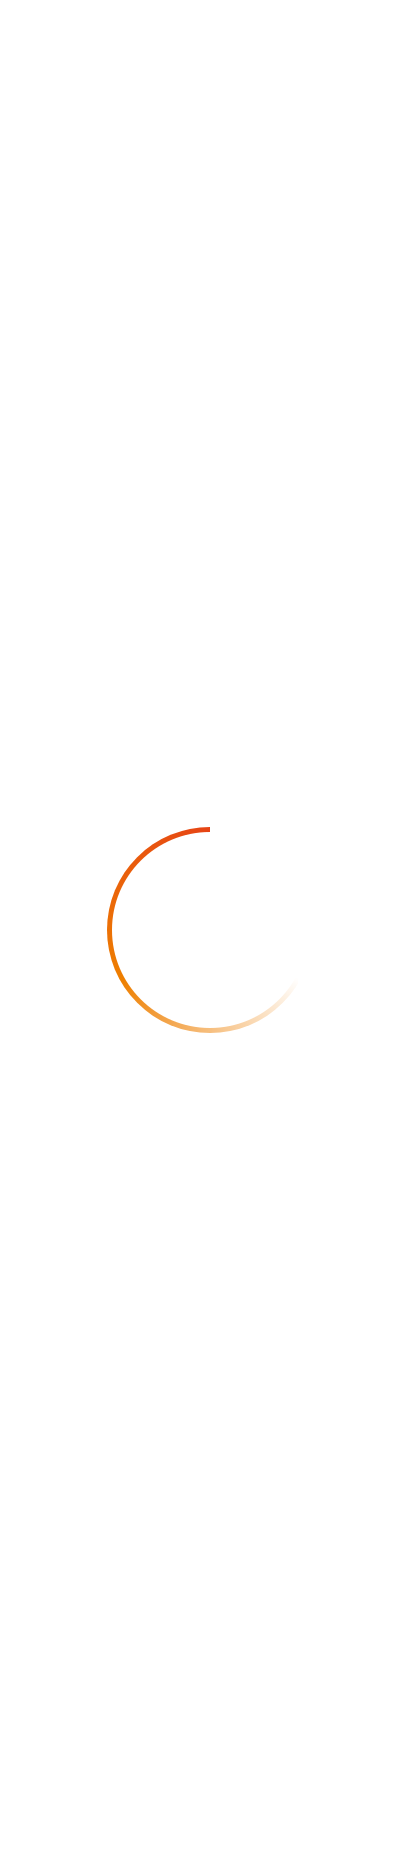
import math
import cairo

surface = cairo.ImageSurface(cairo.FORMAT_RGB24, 420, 1859)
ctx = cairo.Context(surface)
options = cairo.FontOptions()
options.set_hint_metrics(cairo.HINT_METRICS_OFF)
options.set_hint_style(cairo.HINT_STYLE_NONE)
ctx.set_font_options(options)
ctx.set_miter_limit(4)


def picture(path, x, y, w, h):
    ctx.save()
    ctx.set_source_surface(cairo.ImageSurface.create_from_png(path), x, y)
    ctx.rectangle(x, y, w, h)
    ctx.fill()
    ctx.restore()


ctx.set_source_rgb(1, 1, 1)
ctx.paint()
picture("img1.png", 107, 827, 191, 206)
ctx.set_source_rgb(1, 1, 1)
ctx.arc(210, 930, 98, 0, 2 * math.pi)
ctx.fill()
surface.write_to_png("page.png")
